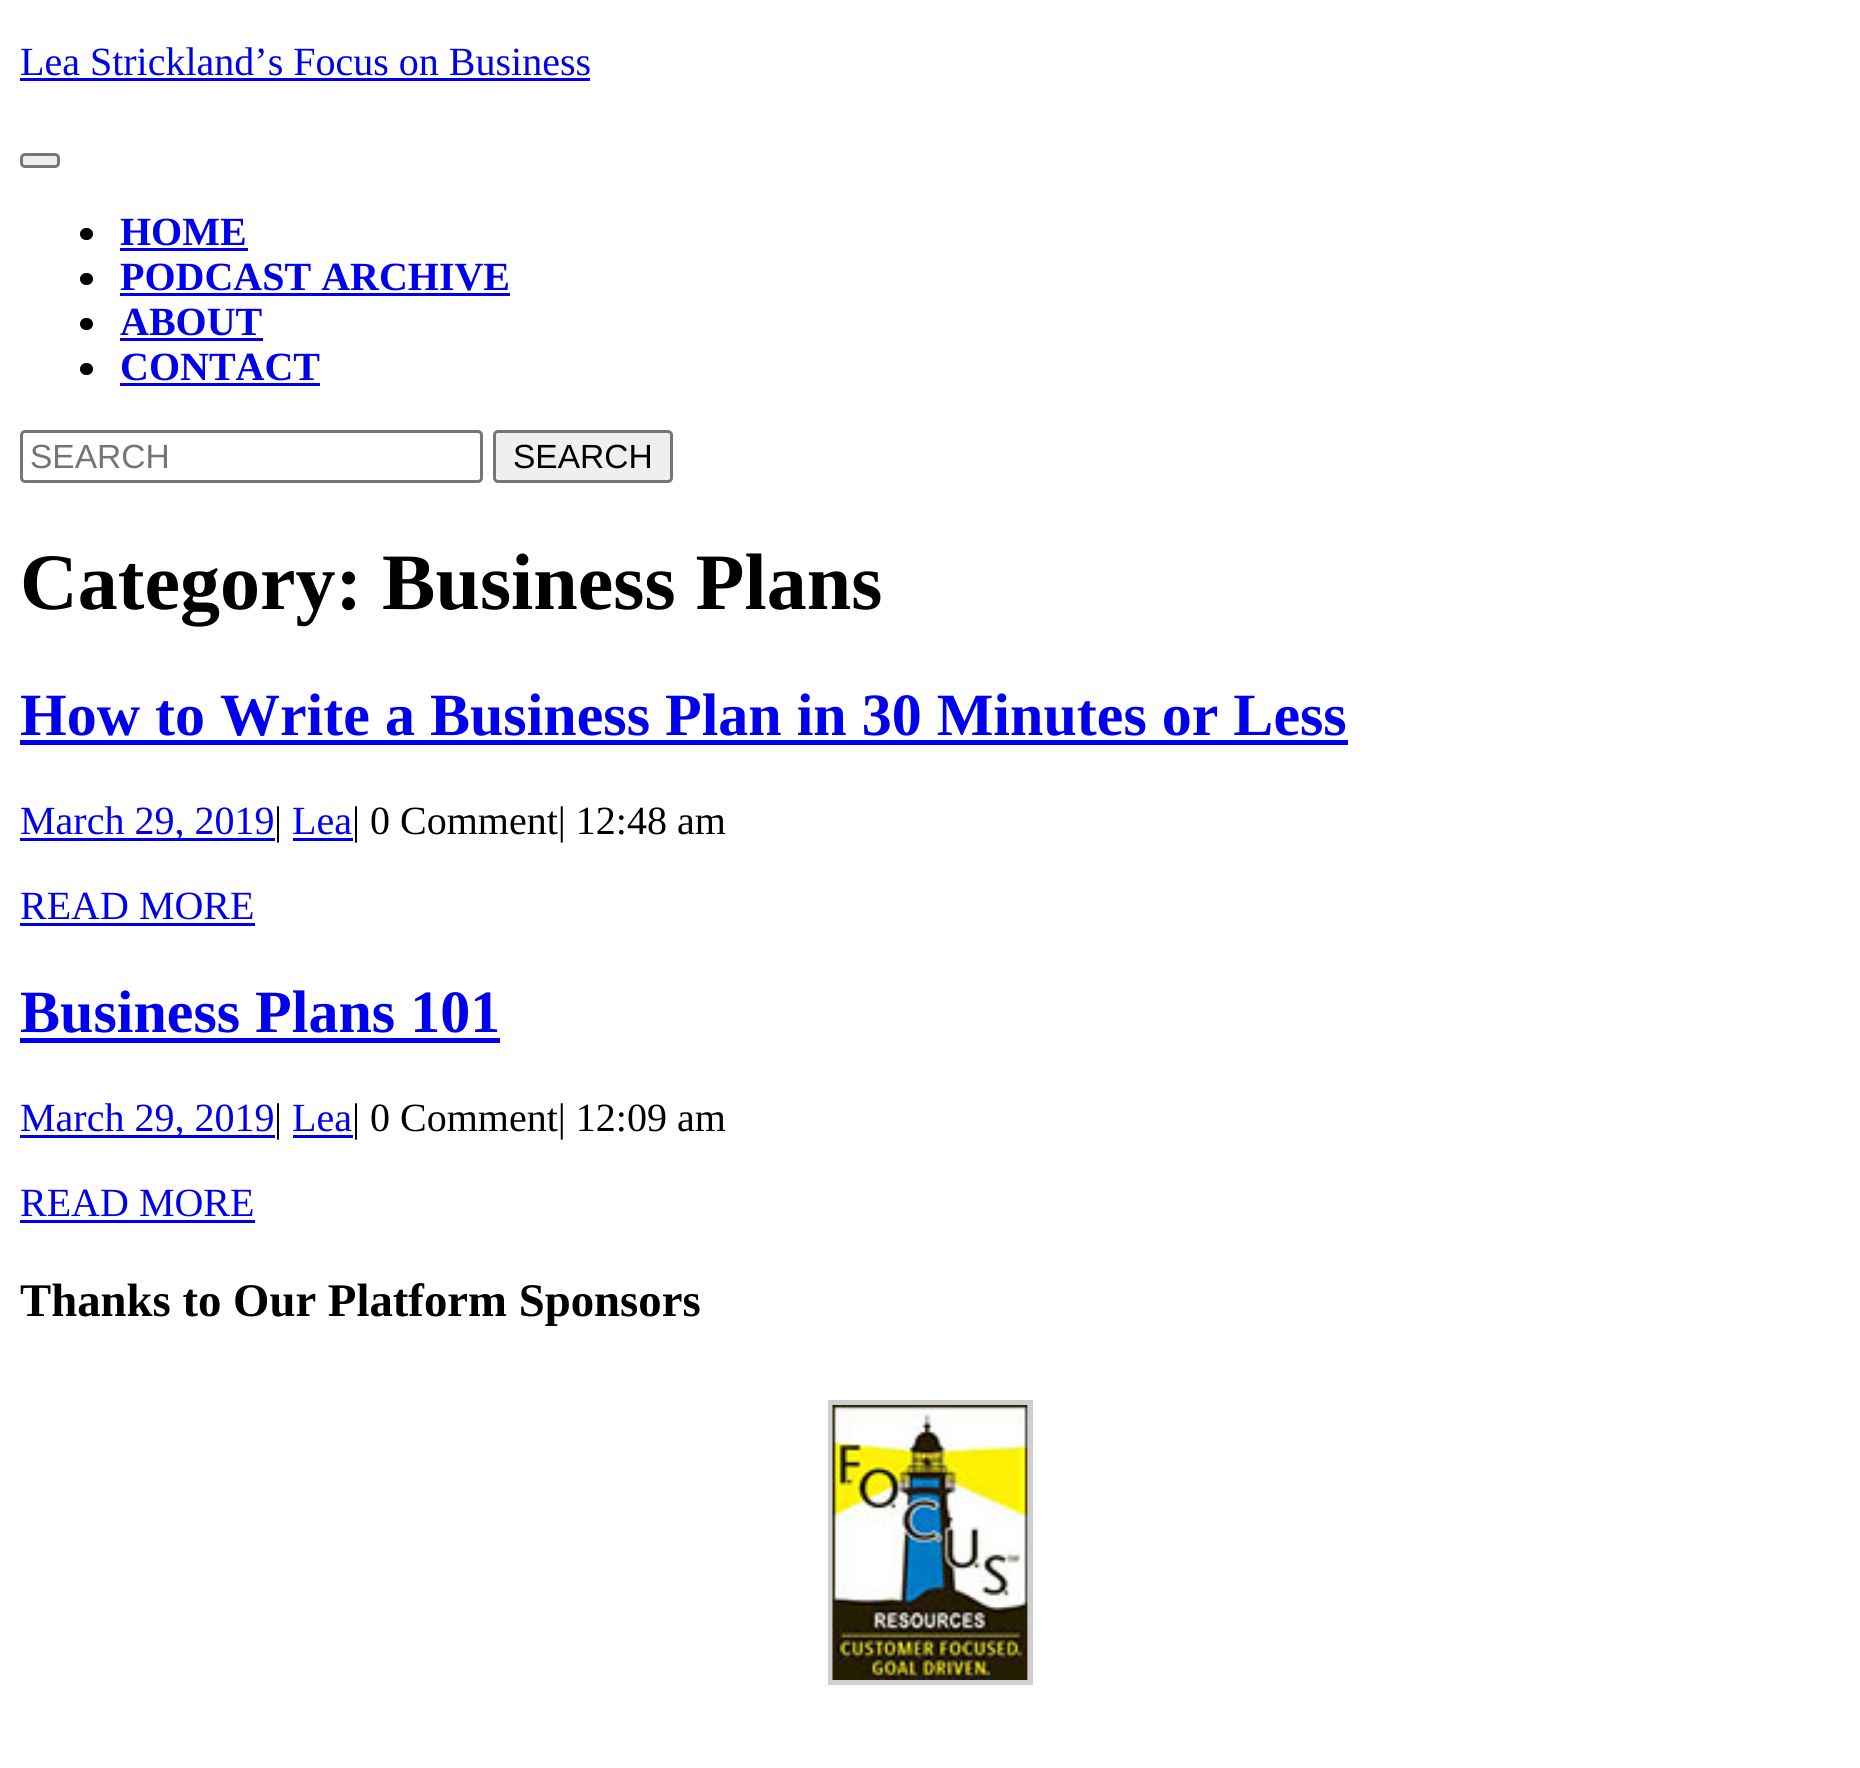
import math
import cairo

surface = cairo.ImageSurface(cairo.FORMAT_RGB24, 1860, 1768)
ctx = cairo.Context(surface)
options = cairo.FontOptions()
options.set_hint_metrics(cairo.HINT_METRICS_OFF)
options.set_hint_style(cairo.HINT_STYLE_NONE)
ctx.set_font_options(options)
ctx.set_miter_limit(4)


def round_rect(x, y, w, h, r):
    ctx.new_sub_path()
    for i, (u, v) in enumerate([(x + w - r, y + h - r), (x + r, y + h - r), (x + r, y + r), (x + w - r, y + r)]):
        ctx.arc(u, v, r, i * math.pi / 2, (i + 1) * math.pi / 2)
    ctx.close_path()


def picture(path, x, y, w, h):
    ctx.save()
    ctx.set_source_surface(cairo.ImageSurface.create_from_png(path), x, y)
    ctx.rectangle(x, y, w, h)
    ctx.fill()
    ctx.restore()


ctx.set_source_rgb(1, 1, 1)
ctx.paint()
ctx.select_font_face("Liberation Serif")
ctx.set_font_size(40)
ctx.set_source_rgb(0, 0, 0.933)
ctx.move_to(20, 75)
ctx.show_text("Lea Strickland’s Focus on Business")
ctx.rectangle(20, 78, 570, 3)
ctx.fill()
ctx.set_source_rgb(0.937, 0.937, 0.937)
round_rect(21.5, 154.5, 37, 12, 3.5)
ctx.fill_preserve()
ctx.set_source_rgb(0.463, 0.463, 0.463)
ctx.set_line_width(3)
ctx.stroke()
ctx.set_source_rgb(0, 0, 0)
round_rect(80, 228, 13, 12, 6)
ctx.fill()
ctx.select_font_face("Liberation Serif", cairo.FONT_SLANT_NORMAL, cairo.FONT_WEIGHT_BOLD)
ctx.set_source_rgb(0, 0, 0.933)
ctx.move_to(120, 245)
ctx.show_text("HOME")
ctx.rectangle(120, 248, 128, 3)
ctx.fill()
ctx.set_source_rgb(0, 0, 0)
round_rect(80, 273, 13, 12, 6)
ctx.fill()
ctx.set_source_rgb(0, 0, 0.933)
ctx.move_to(120, 290)
ctx.show_text("PODCAST ARCHIVE")
ctx.rectangle(120, 293, 390, 3)
ctx.fill()
ctx.set_source_rgb(0, 0, 0)
round_rect(80, 318, 13, 12, 6)
ctx.fill()
ctx.set_source_rgb(0, 0, 0.933)
ctx.move_to(120, 335)
ctx.show_text("ABOUT")
ctx.rectangle(120, 338, 143, 3)
ctx.fill()
ctx.set_source_rgb(0, 0, 0)
round_rect(80, 363, 13, 12, 6)
ctx.fill()
ctx.set_source_rgb(0, 0, 0.933)
ctx.move_to(120, 380)
ctx.show_text("CONTACT")
ctx.rectangle(120, 383, 200, 3)
ctx.fill()
round_rect(21.5, 431.5, 460, 50, 3.5)
ctx.set_source_rgb(0.463, 0.463, 0.463)
ctx.stroke()
ctx.select_font_face("Liberation Sans")
ctx.set_font_size(33.5)
ctx.set_source_rgb(0.459, 0.459, 0.459)
ctx.move_to(30, 468)
ctx.show_text("SEARCH")
ctx.set_source_rgb(0.937, 0.937, 0.937)
round_rect(494.5, 431.5, 177, 50, 3.5)
ctx.fill_preserve()
ctx.set_source_rgb(0.463, 0.463, 0.463)
ctx.stroke()
ctx.set_source_rgb(0, 0, 0)
ctx.move_to(513, 468)
ctx.show_text("SEARCH")
ctx.select_font_face("Liberation Serif", cairo.FONT_SLANT_NORMAL, cairo.FONT_WEIGHT_BOLD)
ctx.set_font_size(80)
ctx.move_to(20, 609)
ctx.show_text("Category: Business Plans")
ctx.set_font_size(60)
ctx.set_source_rgb(0, 0, 0.933)
ctx.move_to(20, 735)
ctx.show_text("How to Write a Business Plan in 30 Minutes or Less")
ctx.rectangle(20, 740, 1328, 5)
ctx.fill()
ctx.rectangle(20, 838, 255, 3)
ctx.fill()
ctx.select_font_face("Liberation Serif")
ctx.set_font_size(40)
ctx.move_to(20, 834)
ctx.show_text("March 29, 2019")
ctx.set_source_rgb(0, 0, 0)
ctx.move_to(274, 834)
ctx.show_text("|")
ctx.set_source_rgb(0, 0, 0.933)
ctx.move_to(292, 834)
ctx.show_text("Lea")
ctx.rectangle(293, 838, 60, 3)
ctx.fill()
ctx.set_source_rgb(0, 0, 0)
ctx.move_to(352, 834)
ctx.show_text("| 0 Comment| 12:48 am")
ctx.set_source_rgb(0, 0, 0.933)
ctx.move_to(20, 919)
ctx.show_text("READ MORE")
ctx.rectangle(20, 923, 235, 3)
ctx.fill()
ctx.select_font_face("Liberation Serif", cairo.FONT_SLANT_NORMAL, cairo.FONT_WEIGHT_BOLD)
ctx.set_font_size(60)
ctx.move_to(20, 1032)
ctx.show_text("Business Plans 101")
ctx.rectangle(20, 1038, 480, 5)
ctx.fill()
ctx.rectangle(20, 1135, 255, 3)
ctx.fill()
ctx.select_font_face("Liberation Serif")
ctx.set_font_size(40)
ctx.move_to(20, 1131)
ctx.show_text("March 29, 2019")
ctx.set_source_rgb(0, 0, 0)
ctx.move_to(274, 1131)
ctx.show_text("|")
ctx.set_source_rgb(0, 0, 0.933)
ctx.move_to(292, 1131)
ctx.show_text("Lea")
ctx.rectangle(293, 1135, 60, 3)
ctx.fill()
ctx.set_source_rgb(0, 0, 0)
ctx.move_to(352, 1131)
ctx.show_text("| 0 Comment| 12:09 am")
ctx.set_source_rgb(0, 0, 0.933)
ctx.move_to(20, 1216)
ctx.show_text("READ MORE")
ctx.rectangle(20, 1220, 235, 3)
ctx.fill()
ctx.select_font_face("Liberation Serif", cairo.FONT_SLANT_NORMAL, cairo.FONT_WEIGHT_BOLD)
ctx.set_font_size(46.75)
ctx.set_source_rgb(0, 0, 0)
ctx.move_to(20, 1316)
ctx.show_text("Thanks to Our Platform Sponsors")
ctx.rectangle(830.5, 1402.5, 200, 280)
ctx.set_source_rgb(0.812, 0.812, 0.812)
ctx.set_line_width(5)
ctx.stroke()
picture("img1.png", 832, 1405, 196, 275)
surface.write_to_png("page.png")
